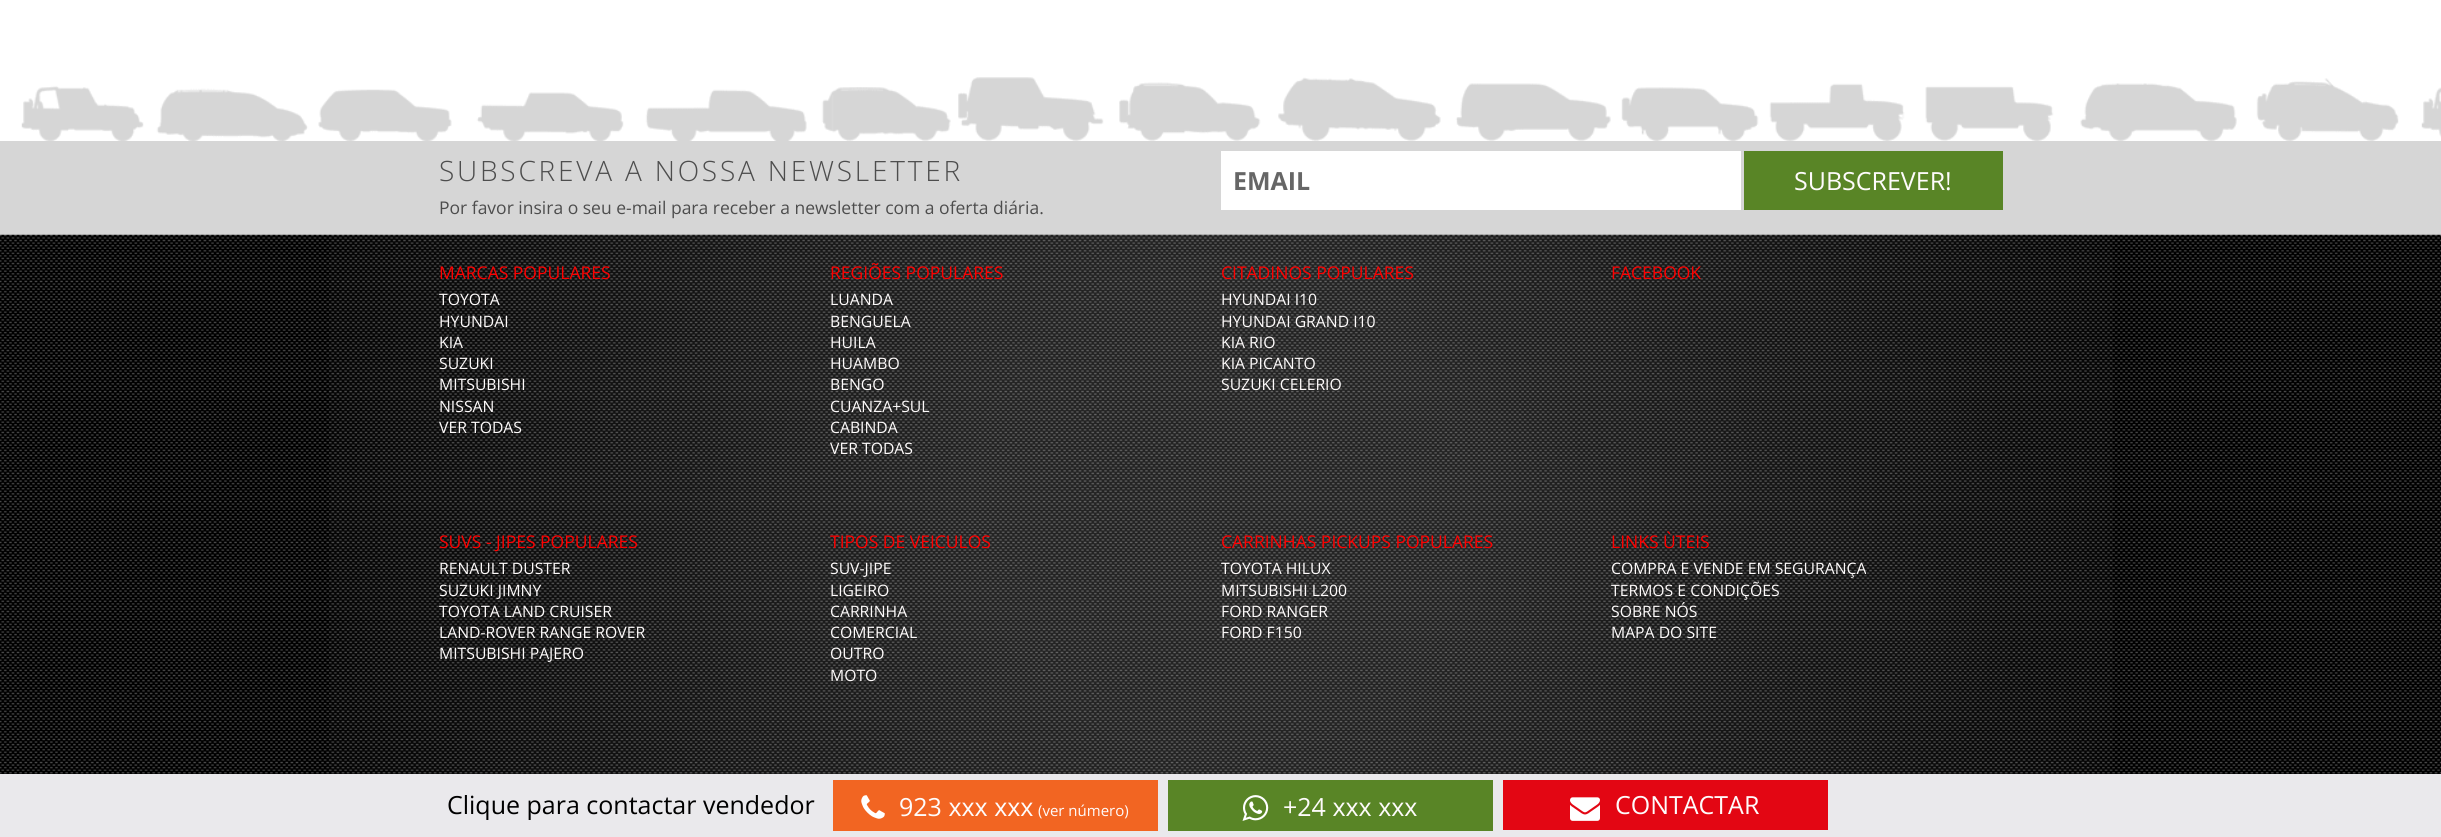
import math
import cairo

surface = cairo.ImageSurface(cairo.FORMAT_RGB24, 2441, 837)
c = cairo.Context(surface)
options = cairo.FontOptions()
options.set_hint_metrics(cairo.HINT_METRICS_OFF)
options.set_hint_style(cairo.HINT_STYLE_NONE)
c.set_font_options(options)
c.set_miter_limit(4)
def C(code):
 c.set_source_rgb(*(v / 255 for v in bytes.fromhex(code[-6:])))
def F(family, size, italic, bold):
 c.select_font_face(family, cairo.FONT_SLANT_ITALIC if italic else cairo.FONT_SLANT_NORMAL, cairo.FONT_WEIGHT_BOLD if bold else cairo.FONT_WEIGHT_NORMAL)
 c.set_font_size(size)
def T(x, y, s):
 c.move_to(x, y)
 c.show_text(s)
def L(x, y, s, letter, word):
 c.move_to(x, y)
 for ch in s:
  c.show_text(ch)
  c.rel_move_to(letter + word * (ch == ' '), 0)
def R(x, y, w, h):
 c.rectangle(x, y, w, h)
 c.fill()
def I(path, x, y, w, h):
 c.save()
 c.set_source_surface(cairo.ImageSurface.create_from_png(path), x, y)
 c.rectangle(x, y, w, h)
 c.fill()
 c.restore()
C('ffffff')
c.paint()
C('d6d6d6')
R(0,141,2441,94)
I('1.png',0,41,2441,100)
F('Open Sans Light',28,0,0)
C('4d4d4d')
L(439,181,'SUBSCREVA A NOSSA NEWSLETTER',2.8,0)
F('Open Sans',17.5,0,0)
T(439,214,'Por favor insira o seu e-mail para receber a newsletter com a oferta diária.')
C('ffffff')
R(1221,151,520,59)
F('Open Sans',25,0,1)
C('666666')
T(1233,190,'EMAIL')
C('598526')
R(1744,151,259,59)
F('Open Sans',25,0,0)
C('fefbfb')
T(1794,190,'SUBSCREVER!')
I('2.png',0,234,2441,540)
gradient = cairo.RadialGradient(1221,508,0,1221,508,1251)
gradient.add_color_stop_rgba(0,1,1,1,.14)
gradient.add_color_stop_rgba(.2,1,1,1,.14)
gradient.add_color_stop_rgba(.8,1,1,1,0)
c.set_source(gradient)
R(329,235,1784,539)
F('Open Sans',17.5,0,0)
C('ff0000')
T(439,279,'MARCAS POPULARES')
F('Open Sans',15.75,0,0)
C('fefbfb')
T(439,305,'TOYOTA')
T(439,327,'HYUNDAI')
T(439,348,'KIA')
T(439,369,'SUZUKI')
T(439,390,'MITSUBISHI')
T(439,412,'NISSAN')
T(439,433,'VER TODAS')
F('Open Sans',17.5,0,0)
C('ff0000')
T(830,279,'REGIÕES POPULARES')
F('Open Sans',15.75,0,0)
C('fefbfb')
T(830,305,'LUANDA')
T(830,327,'BENGUELA')
T(830,348,'HUILA')
T(830,369,'HUAMBO')
T(830,390,'BENGO')
T(830,412,'CUANZA+SUL')
T(830,433,'CABINDA')
T(830,454,'VER TODAS')
F('Open Sans',17.5,0,0)
C('ff0000')
T(1221,279,'CITADINOS POPULARES')
F('Open Sans',15.75,0,0)
C('fefbfb')
T(1221,305,'HYUNDAI I10')
T(1221,327,'HYUNDAI GRAND I10')
T(1221,348,'KIA RIO')
T(1221,369,'KIA PICANTO')
T(1221,390,'SUZUKI CELERIO')
F('Open Sans',17.5,0,0)
C('ff0000')
T(1611,279,'FACEBOOK')
T(439,548,'SUVS - JIPES POPULARES')
F('Open Sans',15.75,0,0)
C('fefbfb')
T(439,574,'RENAULT DUSTER')
T(439,596,'SUZUKI JIMNY')
T(439,617,'TOYOTA LAND CRUISER')
T(439,638,'LAND-ROVER RANGE ROVER')
T(439,659,'MITSUBISHI PAJERO')
F('Open Sans',17.5,0,0)
C('ff0000')
T(830,548,'TIPOS DE VEICULOS')
F('Open Sans',15.75,0,0)
C('fefbfb')
T(830,574,'SUV-JIPE')
T(830,596,'LIGEIRO')
T(830,617,'CARRINHA')
T(830,638,'COMERCIAL')
T(830,659,'OUTRO')
T(830,681,'MOTO')
F('Open Sans',17.5,0,0)
C('ff0000')
T(1221,548,'CARRINHAS PICKUPS POPULARES')
F('Open Sans',15.75,0,0)
C('fefbfb')
T(1221,574,'TOYOTA HILUX')
T(1221,596,'MITSUBISHI L200')
T(1221,617,'FORD RANGER')
T(1221,638,'FORD F150')
F('Open Sans',17.5,0,0)
C('ff0000')
T(1611,548,'LINKS ÙTEIS')
F('Open Sans',15.75,0,0)
C('fefbfb')
T(1611,574,'COMPRA E VENDE EM SEGURANÇA')
T(1611,596,'TERMOS E CONDIÇÕES')
T(1611,617,'SOBRE NÓS')
T(1611,638,'MAPA DO SITE')
C('eae9ec')
R(0,774,2441,63)
F('Open Sans',25,0,0)
C('000000')
T(447,814,'Clique para contactar vendedor')
C('f26522')
R(833,780,325,51)
I('3.png',861,795,24,24)
C('fefbfb')
T(899,816,'923 xxx xxx')
F('Open Sans',15,0,0)
T(1038,816,'(ver número)')
C('598526')
R(1168,780,325,51)
I('4.png',1242,795,27,26)
F('Open Sans',25,0,0)
C('fefbfb')
T(1283,816,'+24 xxx xxx')
C('e30613')
R(1503,780,325,50)
I('5.png',1570,797,30,24)
C('fefbfb')
T(1615,814,'CONTACTAR')
surface.write_to_png('o.png')
